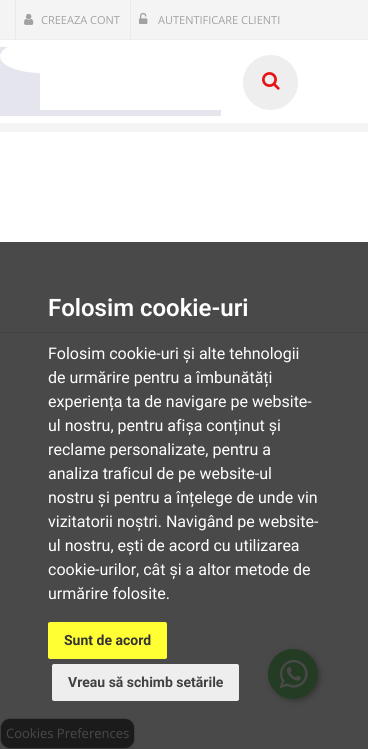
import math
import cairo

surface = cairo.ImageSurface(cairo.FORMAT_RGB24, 368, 749)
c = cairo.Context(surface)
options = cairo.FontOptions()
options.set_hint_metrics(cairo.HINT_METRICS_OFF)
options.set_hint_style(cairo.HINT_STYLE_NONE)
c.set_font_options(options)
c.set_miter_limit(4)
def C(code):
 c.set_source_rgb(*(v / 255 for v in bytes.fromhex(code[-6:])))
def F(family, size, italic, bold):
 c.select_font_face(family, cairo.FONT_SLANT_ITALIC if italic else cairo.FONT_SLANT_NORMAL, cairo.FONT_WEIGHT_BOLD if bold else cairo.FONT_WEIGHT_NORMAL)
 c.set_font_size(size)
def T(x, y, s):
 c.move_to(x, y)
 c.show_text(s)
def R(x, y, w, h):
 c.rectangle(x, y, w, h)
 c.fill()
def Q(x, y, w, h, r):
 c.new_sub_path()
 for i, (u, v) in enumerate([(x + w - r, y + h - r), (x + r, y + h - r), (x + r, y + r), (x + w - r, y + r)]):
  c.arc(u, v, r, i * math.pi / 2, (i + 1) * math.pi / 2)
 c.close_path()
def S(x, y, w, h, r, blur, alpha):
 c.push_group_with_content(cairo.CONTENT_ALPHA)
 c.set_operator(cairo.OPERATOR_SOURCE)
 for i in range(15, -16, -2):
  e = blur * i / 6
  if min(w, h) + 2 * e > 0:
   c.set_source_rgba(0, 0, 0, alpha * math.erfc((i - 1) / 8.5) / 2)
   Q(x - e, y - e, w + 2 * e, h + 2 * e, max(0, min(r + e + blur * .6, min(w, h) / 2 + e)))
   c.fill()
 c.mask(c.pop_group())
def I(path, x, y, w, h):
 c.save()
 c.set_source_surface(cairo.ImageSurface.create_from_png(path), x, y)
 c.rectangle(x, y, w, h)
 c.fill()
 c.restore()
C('ffffff')
c.paint()
C('494949')
R(0,242,368,507)
C('f4f4f4')
R(0,0,368,39)
C('eeeeee')
R(0,39,368,1)
C('e9e9e9')
R(15,0,1,39)
I('1.png',24,13,10,12)
F('Open Sans',11,0,0)
C('a2a2a2')
T(41,24,'CREEAZA CONT')
C('e9e9e9')
R(130,0,1,39)
I('2.png',139,12,9,12)
C('a2a2a2')
T(158,24,'AUTENTIFICARE CLIENTI')
C('f4f4f4')
R(0,123,368,9)
C('e4e5ed')
R(0,47,40,69)
C('ffffff')
c.new_path()
c.move_to(41.5,40)
c.curve_to(64.5,40,83,47.5,83,56.5)
c.curve_to(83,65.5,64.5,73,41.5,73)
c.curve_to(18.5,73,0,65.5,0,56.5)
c.curve_to(0,47.5,18.5,40,41.5,40)
c.close_path()
c.fill()
C('eeeeee')
c.arc(270.5,82.5,27.5,0,2 * math.pi)
c.fill()
I('3.png',262,72,18,18)
C('e4e5ed')
R(40,110,181,6)
C('434343')
R(0,332,368,1)
F('Roboto SemiBold',24,0,0)
C('ffffff')
T(48,316,'Folosim cookie-uri')
F('Roboto',16,0,0)
T(48,359,'Folosim cookie-uri și alte tehnologii')
T(48,383,'de urmărire pentru a îmbunătăți')
T(48,407,'experiența ta de navigare pe website-')
T(48,431,'ul nostru, pentru afișa conținut și')
T(48,455,'reclame personalizate, pentru a')
T(48,479,'analiza traficul de pe website-ul')
T(48,503,'nostru și pentru a înțelege de unde vin')
T(48,527,'vizitatorii noștri. Navigând pe website-')
T(48,551,'ul nostru, ești de acord cu utilizarea')
T(48,575,'cookie-urilor, cât și a altor metode de')
T(48,599,'urmărire folosite.')
C('ffff33')
Q(48,622,119,37,2)
c.fill()
F('Roboto',14,0,1)
C('333333')
T(64,645,'Sunt de acord')
C('eeeeee')
Q(52,664,187,37,2)
c.fill()
C('414141')
T(68,687,'Vreau să schimb setările')
C('161616')
S(270,651,50,50,25,3,.4)
C('253c24')
c.arc(293,674,25,0,2 * math.pi)
c.fill()
I('4.png',279,659,29,30)
C('1b1b1b')
Q(.5,718.5,134,30,9.5)
c.fill_preserve()
C('3e3e3e')
c.set_line_width(1)
c.stroke()
F('Open Sans',13,0,0)
C('494949')
T(6,738,'Cookies Preferences')
surface.write_to_png('o.png')
